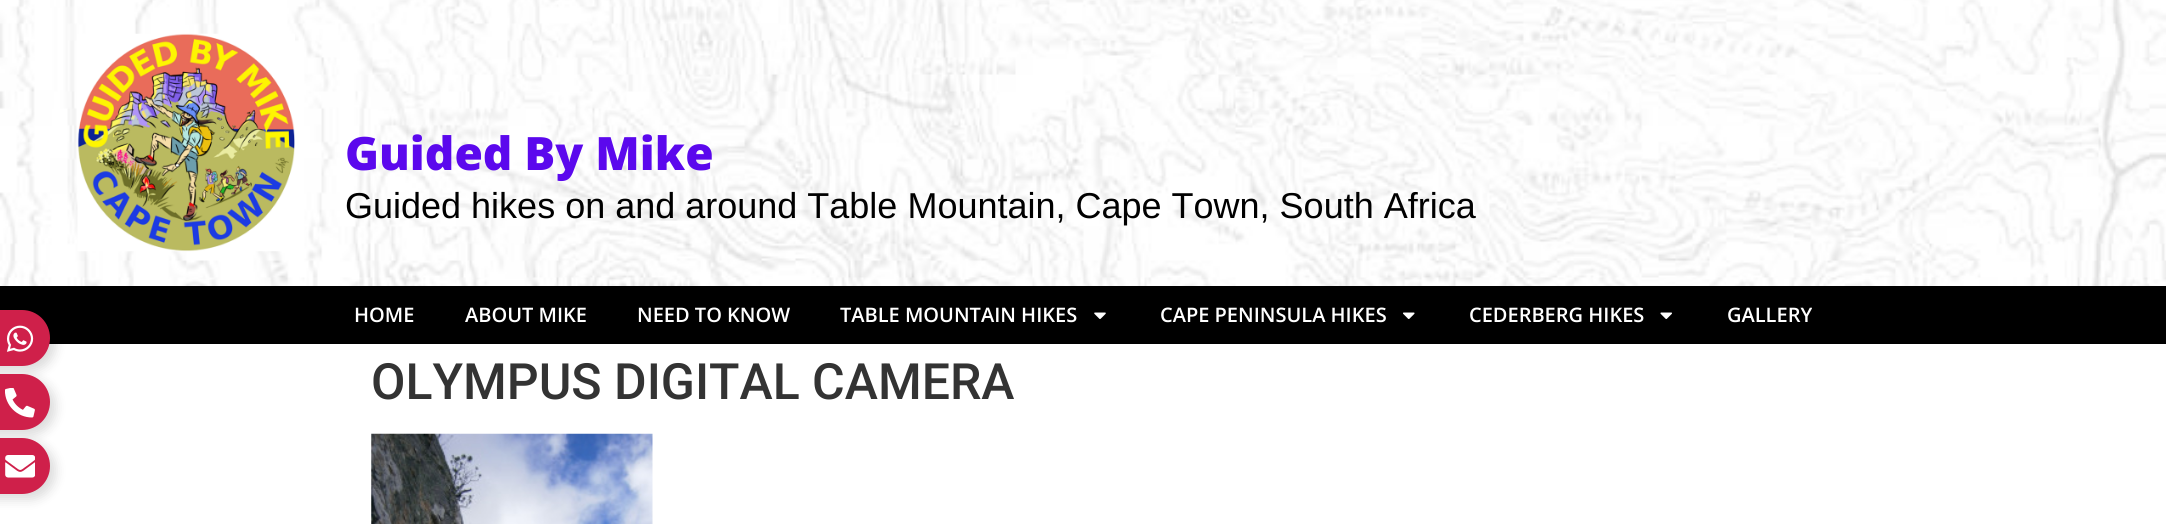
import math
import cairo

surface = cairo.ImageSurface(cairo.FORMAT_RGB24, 2166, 524)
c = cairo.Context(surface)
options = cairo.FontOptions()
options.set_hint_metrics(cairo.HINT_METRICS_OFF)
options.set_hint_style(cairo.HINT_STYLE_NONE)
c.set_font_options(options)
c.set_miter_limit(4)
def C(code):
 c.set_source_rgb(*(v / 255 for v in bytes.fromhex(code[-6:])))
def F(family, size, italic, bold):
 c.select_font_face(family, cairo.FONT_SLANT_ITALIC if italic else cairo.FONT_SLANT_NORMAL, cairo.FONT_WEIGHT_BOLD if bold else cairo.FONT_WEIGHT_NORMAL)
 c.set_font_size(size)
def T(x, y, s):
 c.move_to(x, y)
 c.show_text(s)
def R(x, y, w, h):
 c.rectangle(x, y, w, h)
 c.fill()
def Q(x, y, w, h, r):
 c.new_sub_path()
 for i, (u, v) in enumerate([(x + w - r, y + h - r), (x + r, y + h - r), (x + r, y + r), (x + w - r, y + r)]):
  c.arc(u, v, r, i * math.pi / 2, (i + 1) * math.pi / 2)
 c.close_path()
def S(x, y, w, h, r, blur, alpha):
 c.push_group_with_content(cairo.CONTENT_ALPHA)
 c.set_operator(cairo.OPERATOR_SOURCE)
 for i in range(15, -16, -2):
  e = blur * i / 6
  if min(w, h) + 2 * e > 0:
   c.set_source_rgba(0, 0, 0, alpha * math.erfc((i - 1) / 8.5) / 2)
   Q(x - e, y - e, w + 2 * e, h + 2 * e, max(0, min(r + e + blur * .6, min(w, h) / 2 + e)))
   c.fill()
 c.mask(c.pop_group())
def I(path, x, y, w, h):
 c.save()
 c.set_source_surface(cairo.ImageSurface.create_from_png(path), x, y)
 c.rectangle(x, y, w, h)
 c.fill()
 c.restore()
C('ffffff')
c.paint()
I('1.png',0,0,2166,286)
I('2.png',77,33,218,219)
F('Open Sans ExtraBold',46,0,0)
C('5b08ed')
T(345,170,'Guided By Mike')
F('Liberation Sans',36,0,0)
C('000000')
T(345,218,'Guided hikes on and around Table Mountain, Cape Town, South Africa')
R(0,286,2166,58)
F('Open Sans SemiBold',20,0,0)
C('ffffff')
T(354,322,'HOME')
T(465,322,'ABOUT MIKE')
T(637,322,'NEED TO KNOW')
T(840,322,'TABLE MOUNTAIN HIKES')
I('3.png',1094,312,12,7)
T(1160,322,'CAPE PENINSULA HIKES')
I('4.png',1403,312,12,7)
T(1469,322,'CEDERBERG HIKES')
I('5.png',1660,312,12,7)
T(1727,322,'GALLERY')
C('000000')
S(-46,315,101,56,28,6,.15)
C('cf204a')
c.new_path()
c.move_to(-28,310)
c.line_to(22,310)
c.curve_to(37.5,310,50,322.5,50,338)
c.curve_to(50,353.5,37.5,366,22,366)
c.line_to(-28,366)
c.close_path()
c.fill()
I('6.png',6,325,28,27)
C('000000')
S(-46,379,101,56,28,6,.15)
C('cf204a')
c.new_path()
c.move_to(-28,374)
c.line_to(22,374)
c.curve_to(37.5,374,50,386.5,50,402)
c.curve_to(50,417.5,37.5,430,22,430)
c.line_to(-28,430)
c.close_path()
c.fill()
I('7.png',5,388,30,30)
C('000000')
S(-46,443,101,56,28,6,.15)
C('cf204a')
c.new_path()
c.move_to(-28,438)
c.line_to(22,438)
c.curve_to(37.5,438,50,450.5,50,466)
c.curve_to(50,481.5,37.5,494,22,494)
c.line_to(-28,494)
c.close_path()
c.fill()
I('8.png',5,455,30,23)
F('Roboto Medium',50,0,0)
C('333333')
T(371,399,'OLYMPUS DIGITAL CAMERA')
I('9.png',371,433,282,91)
surface.write_to_png('o.png')
